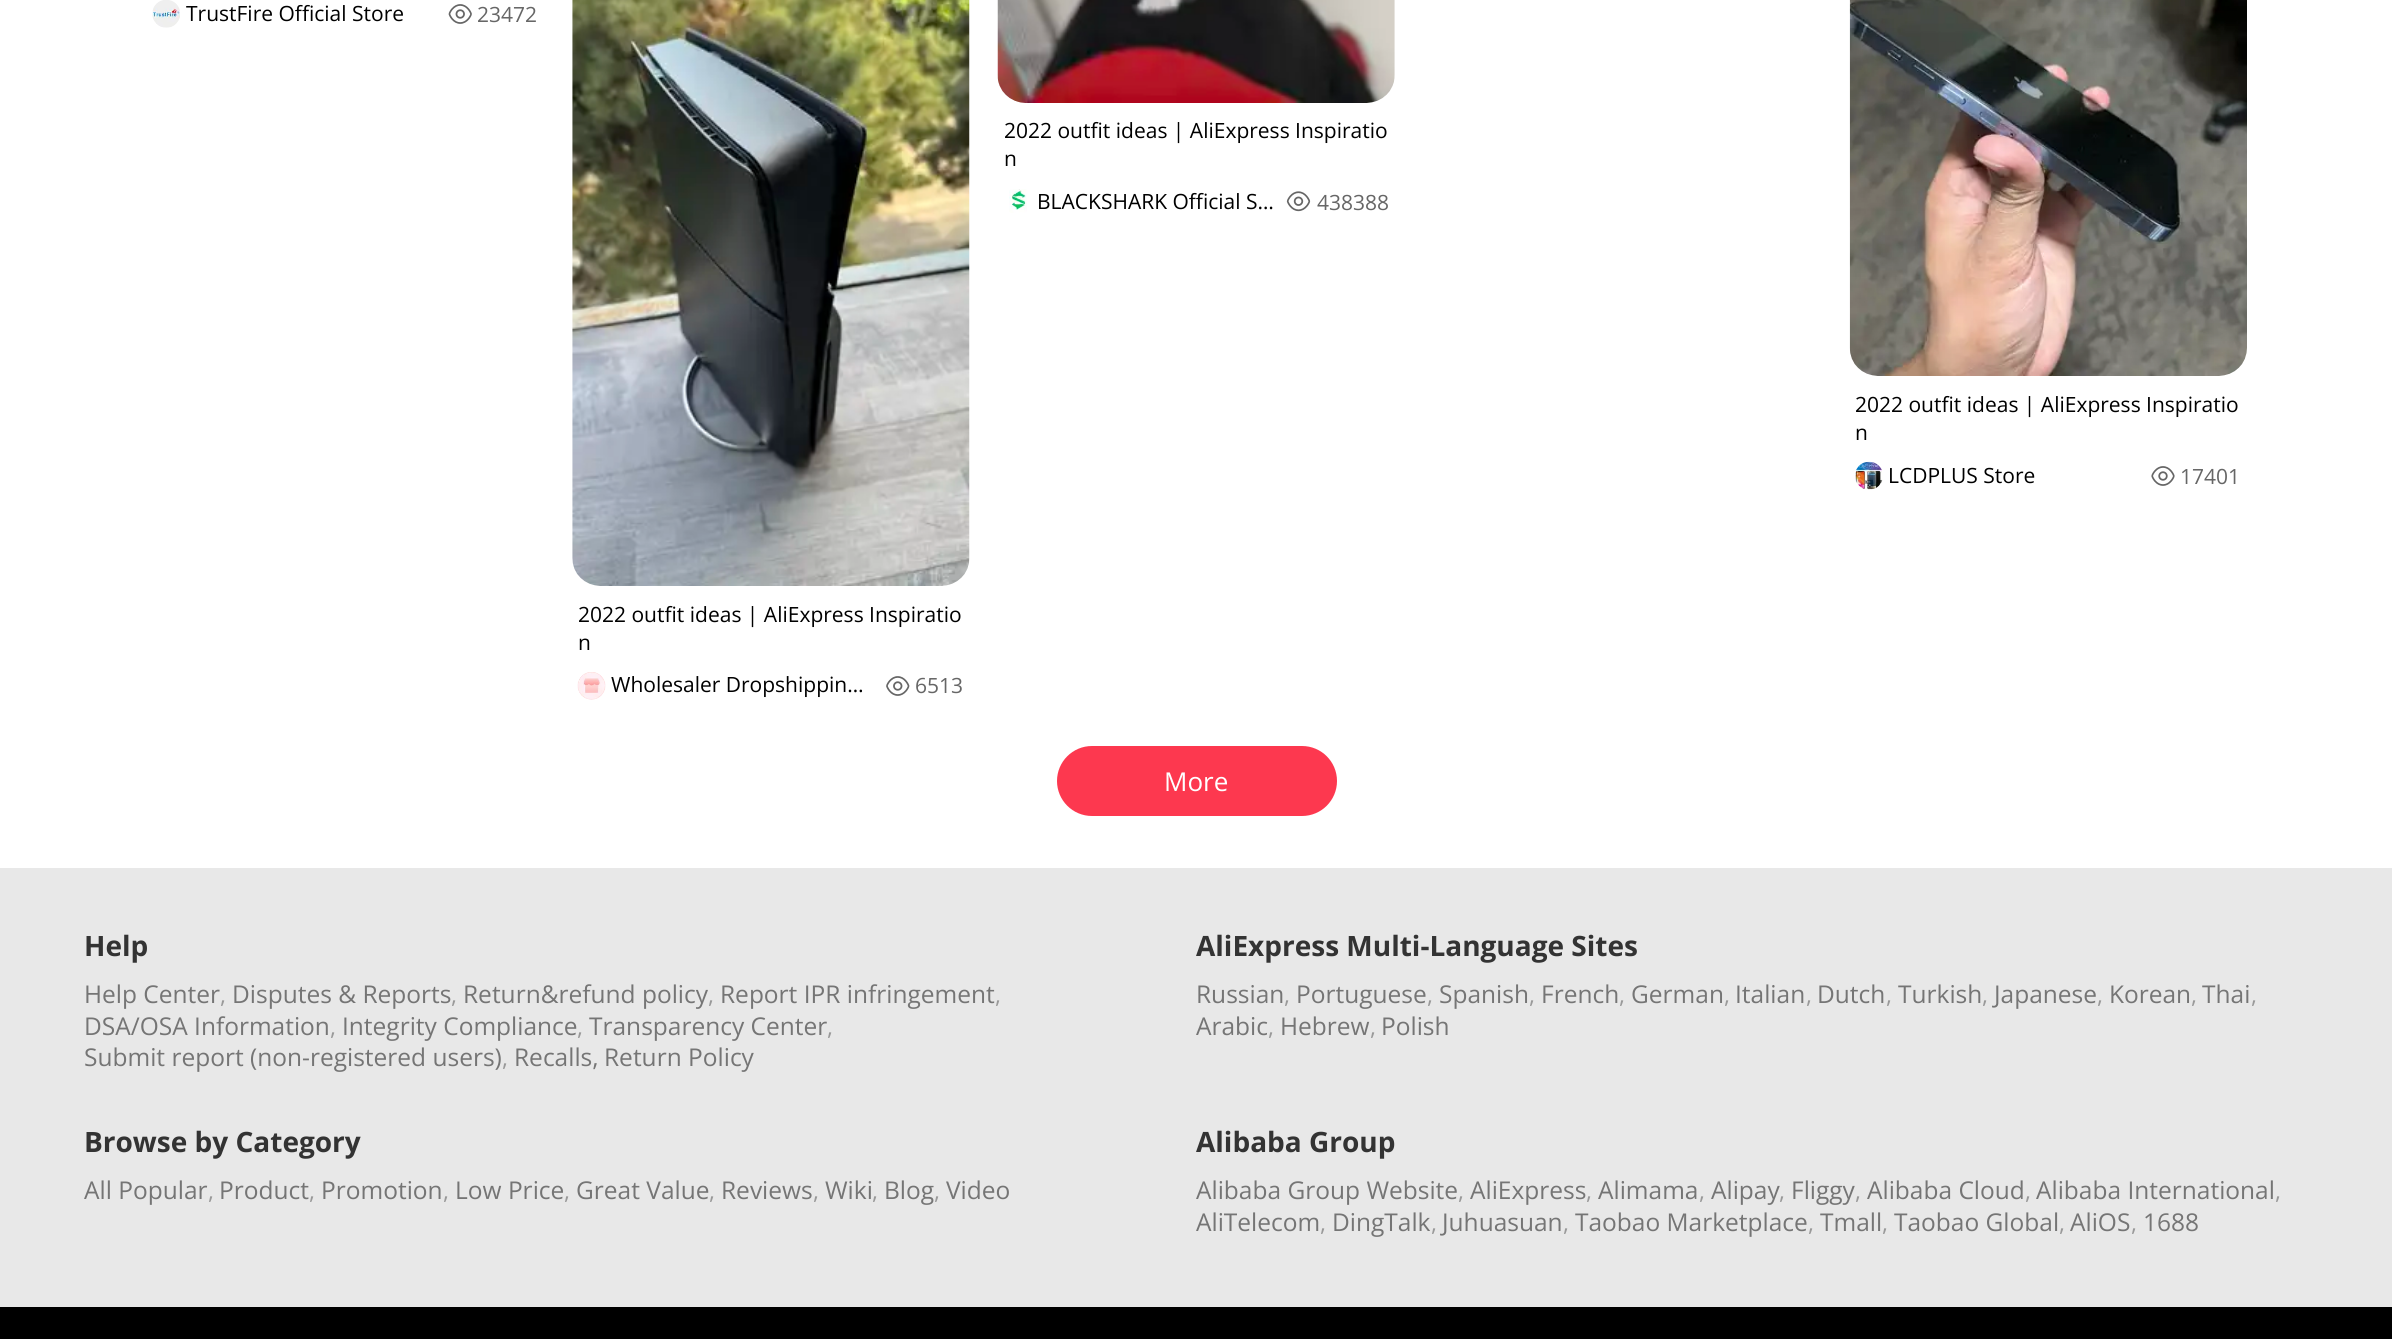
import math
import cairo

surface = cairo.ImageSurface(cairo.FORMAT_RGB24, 2392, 1339)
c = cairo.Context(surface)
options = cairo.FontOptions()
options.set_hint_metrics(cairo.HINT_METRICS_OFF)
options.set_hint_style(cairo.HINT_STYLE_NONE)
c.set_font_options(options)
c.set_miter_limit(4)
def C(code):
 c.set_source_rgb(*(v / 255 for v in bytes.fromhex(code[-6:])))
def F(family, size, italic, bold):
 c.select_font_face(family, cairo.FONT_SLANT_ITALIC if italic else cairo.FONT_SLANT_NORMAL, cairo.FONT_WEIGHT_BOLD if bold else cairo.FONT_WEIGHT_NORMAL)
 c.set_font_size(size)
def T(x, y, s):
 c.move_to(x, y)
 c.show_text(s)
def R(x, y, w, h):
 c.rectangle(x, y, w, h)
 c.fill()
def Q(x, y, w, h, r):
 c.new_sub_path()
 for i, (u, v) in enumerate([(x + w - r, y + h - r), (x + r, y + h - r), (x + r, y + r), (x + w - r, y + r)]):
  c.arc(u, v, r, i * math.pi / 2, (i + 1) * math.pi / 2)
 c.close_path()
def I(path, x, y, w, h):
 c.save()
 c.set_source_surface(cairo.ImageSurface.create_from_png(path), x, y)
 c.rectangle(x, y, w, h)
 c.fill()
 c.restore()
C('ffffff')
c.paint()
I('1.png',152,0,28,28)
F('Open Sans',21,0,0)
C('000000')
T(186,21,'TrustFire Official Store')
I('2.png',448,4,24,20)
C('666666')
T(477,22,'23472')
I('3.png',997,0,398,103)
C('000000')
T(1004,138,'2022 outfit ideas | AliExpress Inspiratio')
T(1004,166,'n')
I('4.png',1009,189,18,24)
T(1037,209,'BLACKSHARK Official S…')
I('5.png',1286,191,25,21)
C('666666')
T(1317,210,'438388')
I('6.png',1849,0,398,376)
C('000000')
T(1855,412,'2022 outfit ideas | AliExpress Inspiratio')
T(1855,440,'n')
I('7.png',1855,461,28,29)
T(1888,483,'LCDPLUS Store')
I('8.png',2151,466,24,20)
C('666666')
T(2180,484,'17401')
I('9.png',572,0,398,586)
C('000000')
T(578,622,'2022 outfit ideas | AliExpress Inspiratio')
T(578,650,'n')
I('10.png',577,672,29,28)
T(611,692,'Wholesaler Dropshippin…')
I('11.png',886,676,24,20)
C('666666')
T(915,693,'6513')
C('fd384f')
Q(1057,746,280,70,35)
c.fill()
F('Open Sans',26,0,0)
C('ffffff')
T(1164,791,'More')
C('e8e8e8')
R(0,868,2392,439)
F('Open Sans',28,0,1)
C('333333')
T(84,956,'Help')
F('Open Sans',24.5,0,0)
C('757575')
T(84,1003,'Help Center')
F('Open Sans',23,0,0)
C('999999')
T(220,1003,',')
F('Open Sans',24.5,0,0)
C('757575')
T(232,1003,'Disputes & Reports')
F('Open Sans',23,0,0)
C('999999')
T(451,1003,',')
F('Open Sans',24.5,0,0)
C('757575')
T(463,1003,'Return&refund policy')
F('Open Sans',23,0,0)
C('999999')
T(708,1003,',')
F('Open Sans',24.5,0,0)
C('757575')
T(720,1003,'Report IPR infringement')
F('Open Sans',23,0,0)
C('999999')
T(995,1003,',')
F('Open Sans',24.5,0,0)
C('757575')
T(84,1035,'DSA/OSA Information')
F('Open Sans',23,0,0)
C('999999')
T(330,1035,',')
F('Open Sans',24.5,0,0)
C('757575')
T(342,1035,'Integrity Compliance')
F('Open Sans',23,0,0)
C('999999')
T(577,1035,',')
F('Open Sans',24.5,0,0)
C('757575')
T(589,1035,'Transparency Center')
F('Open Sans',23,0,0)
C('999999')
T(827,1035,',')
F('Open Sans',24.5,0,0)
C('757575')
T(84,1066,'Submit report (non-registered users)')
F('Open Sans',23,0,0)
C('999999')
T(502,1066,',')
F('Open Sans',24.5,0,0)
C('757575')
T(514,1066,'Recalls,')
T(604,1066,'Return Policy')
F('Open Sans',28,0,1)
C('333333')
T(1196,956,'AliExpress Multi-Language Sites')
F('Open Sans',24.5,0,0)
C('757575')
T(1196,1003,'Russian')
F('Open Sans',23,0,0)
C('999999')
T(1284,1003,',')
F('Open Sans',24.5,0,0)
C('757575')
T(1296,1003,'Portuguese')
F('Open Sans',23,0,0)
C('999999')
T(1427,1003,',')
F('Open Sans',24.5,0,0)
C('757575')
T(1439,1003,'Spanish')
F('Open Sans',23,0,0)
C('999999')
T(1529,1003,',')
F('Open Sans',24.5,0,0)
C('757575')
T(1541,1003,'French')
F('Open Sans',23,0,0)
C('999999')
T(1619,1003,',')
F('Open Sans',24.5,0,0)
C('757575')
T(1631,1003,'German')
F('Open Sans',23,0,0)
C('999999')
T(1724,1003,',')
F('Open Sans',24.5,0,0)
C('757575')
T(1735,1003,'Italian')
F('Open Sans',23,0,0)
C('999999')
T(1806,1003,',')
F('Open Sans',24.5,0,0)
C('757575')
T(1817,1003,'Dutch')
F('Open Sans',23,0,0)
C('999999')
T(1886,1003,',')
F('Open Sans',24.5,0,0)
C('757575')
T(1898,1003,'Turkish')
F('Open Sans',23,0,0)
C('999999')
T(1982,1003,',')
F('Open Sans',24.5,0,0)
C('757575')
T(1994,1003,'Japanese')
F('Open Sans',23,0,0)
C('999999')
T(2097,1003,',')
F('Open Sans',24.5,0,0)
C('757575')
T(2109,1003,'Korean')
F('Open Sans',23,0,0)
C('999999')
T(2191,1003,',')
F('Open Sans',24.5,0,0)
C('757575')
T(2202,1003,'Thai')
F('Open Sans',23,0,0)
C('999999')
T(2251,1003,',')
F('Open Sans',24.5,0,0)
C('757575')
T(1196,1035,'Arabic')
F('Open Sans',23,0,0)
C('999999')
T(1268,1035,',')
F('Open Sans',24.5,0,0)
C('757575')
T(1280,1035,'Hebrew')
F('Open Sans',23,0,0)
C('999999')
T(1370,1035,',')
F('Open Sans',24.5,0,0)
C('757575')
T(1381,1035,'Polish')
F('Open Sans',28,0,1)
C('333333')
T(84,1152,'Browse by Category')
F('Open Sans',24.5,0,0)
C('757575')
T(84,1199,'All Popular')
F('Open Sans',23,0,0)
C('999999')
T(208,1199,',')
F('Open Sans',24.5,0,0)
C('757575')
T(219,1199,'Product')
F('Open Sans',23,0,0)
C('999999')
T(309,1199,',')
F('Open Sans',24.5,0,0)
C('757575')
T(321,1199,'Promotion')
F('Open Sans',23,0,0)
C('999999')
T(443,1199,',')
F('Open Sans',24.5,0,0)
C('757575')
T(455,1199,'Low Price')
F('Open Sans',23,0,0)
C('999999')
T(564,1199,',')
F('Open Sans',24.5,0,0)
C('757575')
T(576,1199,'Great Value')
F('Open Sans',23,0,0)
C('999999')
T(709,1199,',')
F('Open Sans',24.5,0,0)
C('757575')
T(721,1199,'Reviews')
F('Open Sans',23,0,0)
C('999999')
T(813,1199,',')
F('Open Sans',24.5,0,0)
C('757575')
T(825,1199,'Wiki')
F('Open Sans',23,0,0)
C('999999')
T(872,1199,',')
F('Open Sans',24.5,0,0)
C('757575')
T(884,1199,'Blog')
F('Open Sans',23,0,0)
C('999999')
T(934,1199,',')
F('Open Sans',24.5,0,0)
C('757575')
T(946,1199,'Video')
F('Open Sans',28,0,1)
C('333333')
T(1196,1152,'Alibaba Group')
F('Open Sans',24.5,0,0)
C('757575')
T(1196,1199,'Alibaba Group Website')
F('Open Sans',23,0,0)
C('999999')
T(1458,1199,',')
F('Open Sans',24.5,0,0)
C('757575')
T(1470,1199,'AliExpress')
F('Open Sans',23,0,0)
C('999999')
T(1586,1199,',')
F('Open Sans',24.5,0,0)
C('757575')
T(1598,1199,'Alimama')
F('Open Sans',23,0,0)
C('999999')
T(1699,1199,',')
F('Open Sans',24.5,0,0)
C('757575')
T(1711,1199,'Alipay')
F('Open Sans',23,0,0)
C('999999')
T(1779,1199,',')
F('Open Sans',24.5,0,0)
C('757575')
T(1791,1199,'Fliggy')
F('Open Sans',23,0,0)
C('999999')
T(1855,1199,',')
F('Open Sans',24.5,0,0)
C('757575')
T(1867,1199,'Alibaba Cloud')
F('Open Sans',23,0,0)
C('999999')
T(2025,1199,',')
F('Open Sans',24.5,0,0)
C('757575')
T(2036,1199,'Alibaba International')
F('Open Sans',23,0,0)
C('999999')
T(2275,1199,',')
F('Open Sans',24.5,0,0)
C('757575')
T(1196,1231,'AliTelecom')
F('Open Sans',23,0,0)
C('999999')
T(1320,1231,',')
F('Open Sans',24.5,0,0)
C('757575')
T(1332,1231,'DingTalk')
F('Open Sans',23,0,0)
C('999999')
T(1431,1231,',')
F('Open Sans',24.5,0,0)
C('757575')
T(1442,1231,'Juhuasuan')
F('Open Sans',23,0,0)
C('999999')
T(1563,1231,',')
F('Open Sans',24.5,0,0)
C('757575')
T(1575,1231,'Taobao Marketplace')
F('Open Sans',23,0,0)
C('999999')
T(1808,1231,',')
F('Open Sans',24.5,0,0)
C('757575')
T(1820,1231,'Tmall')
F('Open Sans',23,0,0)
C('999999')
T(1882,1231,',')
F('Open Sans',24.5,0,0)
C('757575')
T(1894,1231,'Taobao Global')
F('Open Sans',23,0,0)
C('999999')
T(2059,1231,',')
F('Open Sans',24.5,0,0)
C('757575')
T(2070,1231,'AliOS')
F('Open Sans',23,0,0)
C('999999')
T(2131,1231,',')
F('Open Sans',24.5,0,0)
C('757575')
T(2143,1231,'1688')
C('000000')
R(0,1307,2392,32)
surface.write_to_png('o.png')
